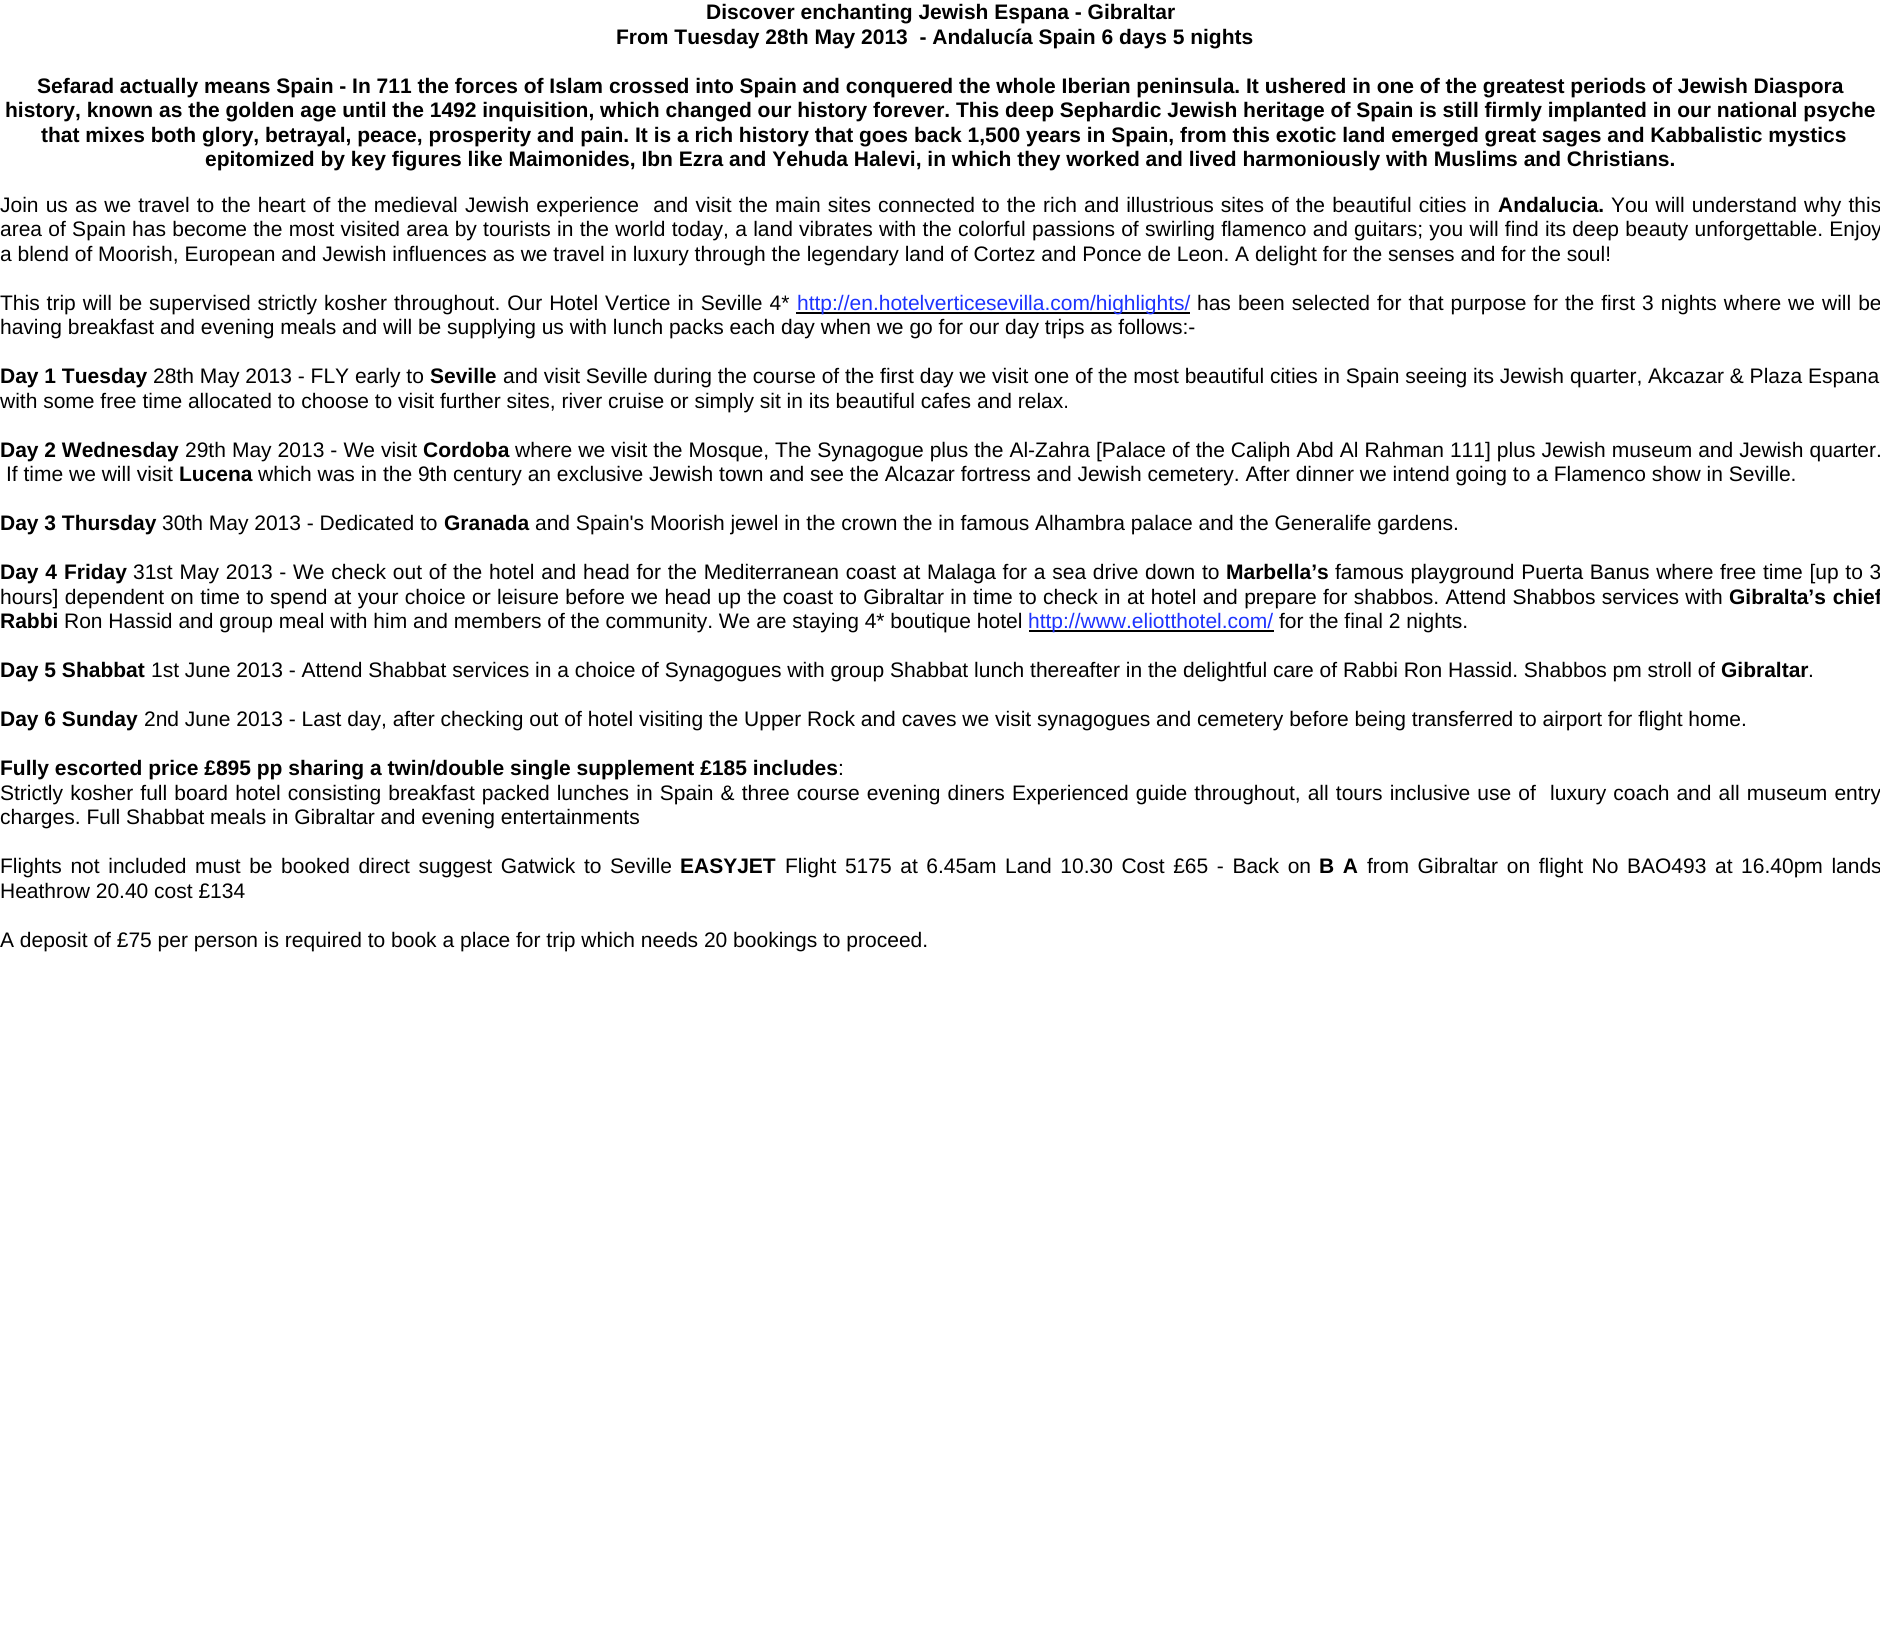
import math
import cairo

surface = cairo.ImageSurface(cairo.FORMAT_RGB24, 1880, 1633)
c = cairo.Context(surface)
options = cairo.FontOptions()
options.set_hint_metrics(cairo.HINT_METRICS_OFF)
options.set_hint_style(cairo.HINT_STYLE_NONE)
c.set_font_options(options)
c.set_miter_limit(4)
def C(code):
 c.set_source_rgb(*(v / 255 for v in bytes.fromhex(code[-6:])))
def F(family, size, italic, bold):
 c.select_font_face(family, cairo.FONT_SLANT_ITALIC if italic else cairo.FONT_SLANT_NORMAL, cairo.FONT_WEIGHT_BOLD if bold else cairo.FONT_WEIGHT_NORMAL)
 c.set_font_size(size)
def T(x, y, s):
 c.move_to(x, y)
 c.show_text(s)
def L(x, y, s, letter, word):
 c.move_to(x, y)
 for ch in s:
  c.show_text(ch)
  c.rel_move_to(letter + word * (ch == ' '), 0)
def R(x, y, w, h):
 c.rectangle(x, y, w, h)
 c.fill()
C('ffffff')
c.paint()
F('Liberation Sans',21,0,1)
C('000000')
T(706,19,'Discover enchanting Jewish Espana - Gibraltar')
T(616,44,'From Tuesday 28th May 2013  - Andalucía Spain 6 days 5 nights')
T(37,93,'Sefarad actually means Spain - In 711 the forces of Islam crossed into Spain and conquered the whole Iberian peninsula. It ushered in one of the greatest periods of Jewish Diaspora')
T(5,117,'history, known as the golden age until the 1492 inquisition, which changed our history forever. This deep Sephardic Jewish heritage of Spain is still firmly implanted in our national psyche')
T(41,142,'that mixes both glory, betrayal, peace, prosperity and pain. It is a rich history that goes back 1,500 years in Spain, from this exotic land emerged great sages and Kabbalistic mystics')
T(205,166,'epitomized by key figures like Maimonides, Ibn Ezra and Yehuda Halevi, in which they worked and lived harmoniously with Muslims and Christians.')
F('Liberation Sans',21,0,0)
L(0,212,'Join us as we travel to the heart of the medieval Jewish experience  and visit the main sites connected to the rich and illustrious sites of the beautiful cities in',0,1.3)
F('Liberation Sans',21,0,1)
T(1498,212,'Andalucia.')
F('Liberation Sans',21,0,0)
L(1611,212,'You will understand why this',0,1.3)
L(0,236,'area of Spain has become the most visited area by tourists in the world today, a land vibrates with the colorful passions of swirling flamenco and guitars; you will find its deep beauty unforgettable. Enjoy',0,.45)
T(0,261,'a blend of Moorish, European and Jewish influences as we travel in luxury through the legendary land of Cortez and Ponce de Leon. A delight for the senses and for the soul!')
L(0,310,'This trip will be supervised strictly kosher throughout. Our Hotel Vertice in Seville 4*',0,1.1)
R(796,312,394,2)
C('1d33fe')
T(797,310,'http://en.hotelverticesevilla.com/highlights/')
C('000000')
L(1197,310,'has been selected for that purpose for the first 3 nights where we will be',0,1.2)
T(0,334,'having breakfast and evening meals and will be supplying us with lunch packs each day when we go for our day trips as follows:-')
F('Liberation Sans',21,0,1)
T(0,383,'Day 1 Tuesday')
F('Liberation Sans',21,0,0)
T(153,383,'28th May 2013 - FLY early to')
F('Liberation Sans',21,0,1)
T(430,383,'Seville')
F('Liberation Sans',21,0,0)
T(503,383,'and visit Seville during the course of the first day we visit one of the most beautiful cities in Spain seeing its Jewish quarter, Akcazar & Plaza Espana')
T(0,408,'with some free time allocated to choose to visit further sites, river cruise or simply sit in its beautiful cafes and relax.')
F('Liberation Sans',21,0,1)
T(0,457,'Day 2 Wednesday')
F('Liberation Sans',21,0,0)
L(185,457,'29th May 2013 - We visit',0,.2)
F('Liberation Sans',21,0,1)
T(423,457,'Cordoba')
F('Liberation Sans',21,0,0)
L(515,457,'where we visit the Mosque, The Synagogue plus the Al-Zahra [Palace of the Caliph Abd Al Rahman 111] plus Jewish museum and Jewish quarter.',0,.2)
T(6,481,'If time we will visit')
F('Liberation Sans',21,0,1)
T(179,481,'Lucena')
F('Liberation Sans',21,0,0)
T(258,481,'which was in the 9th century an exclusive Jewish town and see the Alcazar fortress and Jewish cemetery. After dinner we intend going to a Flamenco show in Seville.')
F('Liberation Sans',21,0,1)
T(0,530,'Day 3 Thursday')
F('Liberation Sans',21,0,0)
T(162,530,'30th May 2013 - Dedicated to')
F('Liberation Sans',21,0,1)
T(444,530,'Granada')
F('Liberation Sans',21,0,0)
T(535,530,'and Spain\'s Moorish jewel in the crown the in famous Alhambra palace and the Generalife gardens.')
F('Liberation Sans',21,0,1)
L(0,579,'Day 4 Friday',0,1)
F('Liberation Sans',21,0,0)
L(133,579,'31st May 2013 - We check out of the hotel and head for the Mediterranean coast at Malaga for a sea drive down to',0,.9)
F('Liberation Sans',21,0,1)
T(1226,579,'Marbella’s')
F('Liberation Sans',21,0,0)
L(1335,579,'famous playground Puerta Banus where free time [up to 3',0,.9)
L(0,604,'hours] dependent on time to spend at your choice or leisure before we head up the coast to Gibraltar in time to check in at hotel and prepare for shabbos. Attend Shabbos services with',0,.55)
F('Liberation Sans',21,0,1)
L(1729,604,'Gibralta’s chief',0,1)
T(0,628,'Rabbi')
F('Liberation Sans',21,0,0)
T(64,628,'Ron Hassid and group meal with him and members of the community. We are staying 4* boutique hotel')
R(1029,630,245,2)
C('1d33fe')
T(1028,628,'http://www.eliotthotel.com/')
C('000000')
T(1279,628,'for the final 2 nights.')
F('Liberation Sans',21,0,1)
T(0,677,'Day 5 Shabbat')
F('Liberation Sans',21,0,0)
T(151,677,'1st June 2013 - Attend Shabbat services in a choice of Synagogues with group Shabbat lunch thereafter in the delightful care of Rabbi Ron Hassid. Shabbos pm stroll of')
F('Liberation Sans',21,0,1)
T(1721,677,'Gibraltar')
F('Liberation Sans',21,0,0)
T(1808,677,'.')
F('Liberation Sans',21,0,1)
T(0,726,'Day 6 Sunday')
F('Liberation Sans',21,0,0)
T(144,726,'2nd June 2013 - Last day, after checking out of hotel visiting the Upper Rock and caves we visit synagogues and cemetery before being transferred to airport for flight home.')
F('Liberation Sans',21,0,1)
T(0,775,'Fully escorted price £895 pp sharing a twin/double single supplement £185 includes')
F('Liberation Sans',21,0,0)
T(838,775,':')
L(0,800,'Strictly kosher full board hotel consisting breakfast packed lunches in Spain & three course evening diners Experienced guide throughout, all tours inclusive use of  luxury coach and all museum entry',0,1.3)
T(0,824,'charges. Full Shabbat meals in Gibraltar and evening entertainments')
L(0,873,'Flights not included must be booked direct suggest Gatwick to Seville',0,2.75)
F('Liberation Sans',21,0,1)
T(680,873,'EASYJET')
F('Liberation Sans',21,0,0)
L(785,873,'Flight 5175 at 6.45am Land 10.30 Cost £65 - Back on',0,2.75)
F('Liberation Sans',21,0,1)
L(1319,873,'B A',0,2.75)
F('Liberation Sans',21,0,0)
L(1367,873,'from Gibraltar on flight No BAO493 at 16.40pm lands',0,2.75)
T(0,898,'Heathrow 20.40 cost £134')
T(0,947,'A deposit of £75 per person is required to book a place for trip which needs 20 bookings to proceed.')
surface.write_to_png('o.png')
